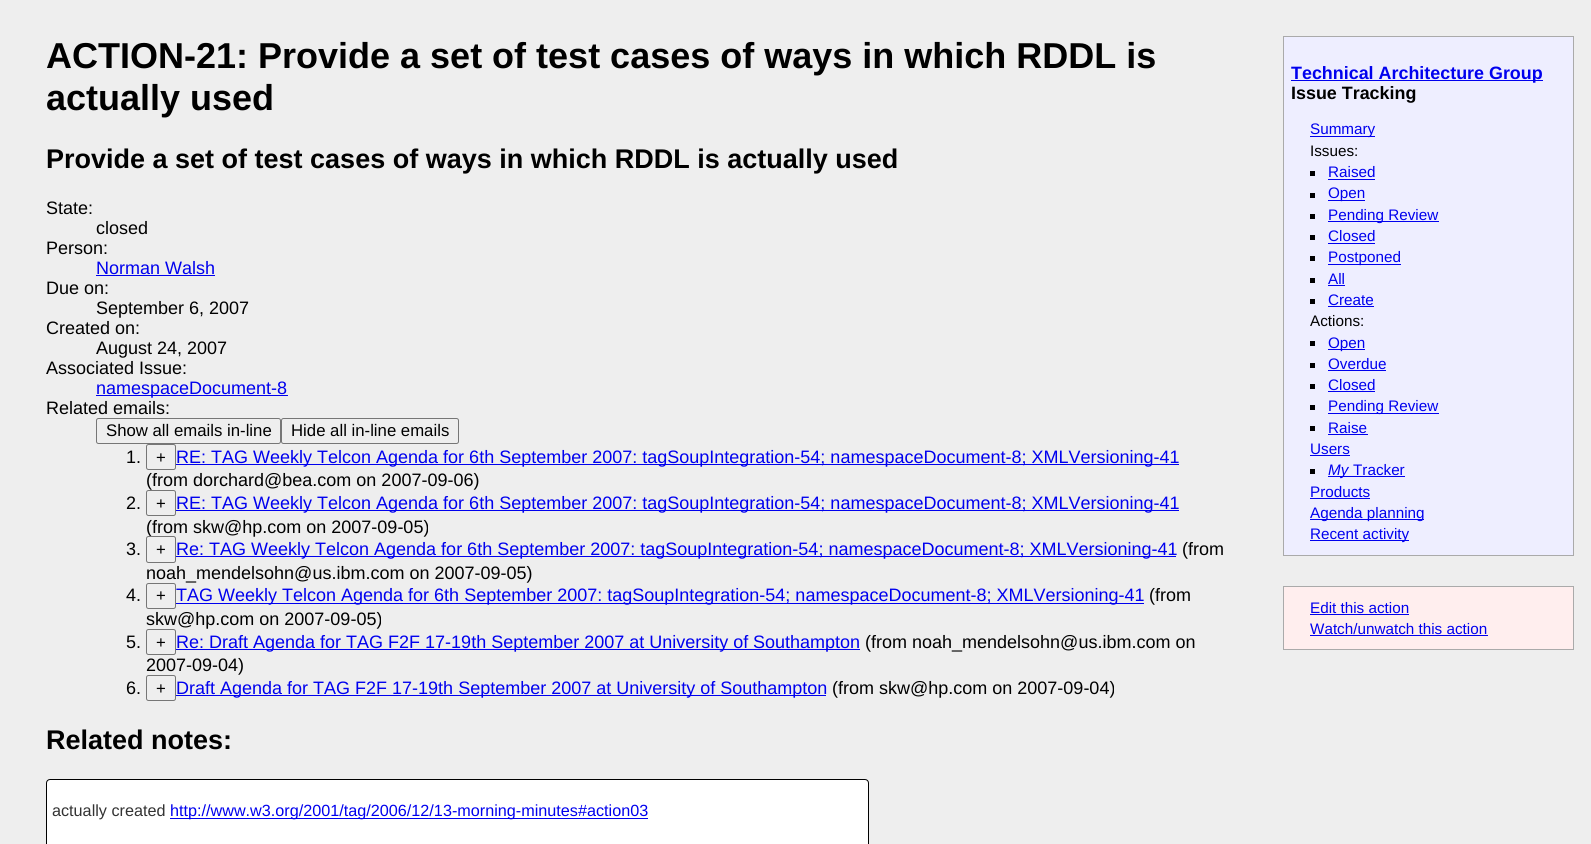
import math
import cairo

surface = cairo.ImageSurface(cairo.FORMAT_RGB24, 1591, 844)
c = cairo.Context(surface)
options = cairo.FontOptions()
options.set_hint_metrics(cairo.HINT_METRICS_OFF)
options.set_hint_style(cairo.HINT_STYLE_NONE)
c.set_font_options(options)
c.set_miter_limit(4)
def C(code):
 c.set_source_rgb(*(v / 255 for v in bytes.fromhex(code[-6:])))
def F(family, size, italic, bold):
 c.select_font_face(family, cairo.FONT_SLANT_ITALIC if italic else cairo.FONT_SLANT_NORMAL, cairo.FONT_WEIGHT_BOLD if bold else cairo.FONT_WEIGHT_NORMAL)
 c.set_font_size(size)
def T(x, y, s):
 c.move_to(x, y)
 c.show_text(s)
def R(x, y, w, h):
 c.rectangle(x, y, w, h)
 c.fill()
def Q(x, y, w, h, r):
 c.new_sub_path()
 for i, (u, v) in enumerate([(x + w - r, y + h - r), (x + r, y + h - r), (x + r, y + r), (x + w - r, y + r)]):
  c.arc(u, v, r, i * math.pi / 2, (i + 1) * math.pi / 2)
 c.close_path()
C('eeeeee')
c.paint()
F('Liberation Sans',36,0,1)
C('000000')
T(46,68,'ACTION-21: Provide a set of test cases of ways in which RDDL is')
T(46,110,'actually used')
F('Liberation Sans',27,0,1)
T(46,168,'Provide a set of test cases of ways in which RDDL is actually used')
F('Liberation Sans',18,0,0)
T(46,214,'State:')
T(96,234,'closed')
T(46,254,'Person:')
C('0000ee')
T(96,274,'Norman Walsh')
R(96,275,119,1)
C('000000')
T(46,294,'Due on:')
T(96,314,'September 6, 2007')
T(46,334,'Created on:')
T(96,354,'August 24, 2007')
T(46,374,'Associated Issue:')
C('0000ee')
R(96,395,192,1)
T(96,394,'namespaceDocument-8')
C('000000')
T(46,414,'Related emails:')
Q(96.5,418.5,184,25,2)
C('767676')
c.set_line_width(1)
c.stroke()
F('Liberation Sans',16.75,0,0)
C('000000')
T(106,436,'Show all emails in-line')
Q(281.5,418.5,177,25,2)
C('767676')
c.stroke()
C('000000')
T(291,436,'Hide all in-line emails')
F('Liberation Sans',18,0,0)
T(126,463,'1.')
Q(146.5,444.5,29,25,2)
C('767676')
c.stroke()
F('Liberation Sans',16.75,0,0)
C('000000')
T(156,463,'+')
C('0000ee')
R(176,464,1003,1)
F('Liberation Sans',18,0,0)
T(176,463,'RE: TAG Weekly Telcon Agenda for 6th September 2007: tagSoupIntegration-54; namespaceDocument-8; XMLVersioning-41')
C('000000')
T(146,486,'(from dorchard@bea.com on 2007-09-06)')
T(126,509,'2.')
Q(146.5,490.5,29,25,2)
C('767676')
c.stroke()
F('Liberation Sans',16.75,0,0)
C('000000')
T(156,509,'+')
C('0000ee')
R(176,510,1003,1)
F('Liberation Sans',18,0,0)
T(176,509,'RE: TAG Weekly Telcon Agenda for 6th September 2007: tagSoupIntegration-54; namespaceDocument-8; XMLVersioning-41')
C('000000')
T(146,533,'(from skw@hp.com on 2007-09-05)')
T(126,555,'3.')
C('efefef')
Q(146.5,536.5,29,26,2)
c.fill_preserve()
C('767676')
c.stroke()
F('Liberation Sans',16.75,0,0)
C('000000')
T(156,555,'+')
C('0000ee')
R(176,556,1000,1)
F('Liberation Sans',18,0,0)
T(176,555,'Re: TAG Weekly Telcon Agenda for 6th September 2007: tagSoupIntegration-54; namespaceDocument-8; XMLVersioning-41')
C('000000')
T(1182,555,'(from')
T(146,579,'noah_mendelsohn@us.ibm.com on 2007-09-05)')
T(126,601,'4.')
Q(146.5,583.5,29,25,2)
C('767676')
c.stroke()
F('Liberation Sans',16.75,0,0)
C('000000')
T(156,601,'+')
C('0000ee')
R(176,603,968,1)
F('Liberation Sans',18,0,0)
T(176,601,'TAG Weekly Telcon Agenda for 6th September 2007: tagSoupIntegration-54; namespaceDocument-8; XMLVersioning-41')
C('000000')
T(1149,601,'(from')
T(146,625,'skw@hp.com on 2007-09-05)')
T(126,648,'5.')
Q(146.5,629.5,29,25,2)
C('767676')
c.stroke()
F('Liberation Sans',16.75,0,0)
C('000000')
T(156,648,'+')
C('0000ee')
R(176,649,684,1)
F('Liberation Sans',18,0,0)
T(176,648,'Re: Draft Agenda for TAG F2F 17-19th September 2007 at University of')
T(753,648,'Southampton')
C('000000')
T(865,648,'(from noah_mendelsohn@us.ibm.com on')
T(146,671,'2007-09-04)')
T(126,694,'6.')
Q(146.5,675.5,29,25,2)
C('767676')
c.stroke()
F('Liberation Sans',16.75,0,0)
C('000000')
T(156,694,'+')
C('0000ee')
R(176,695,650,1)
F('Liberation Sans',18,0,0)
T(176,694,'Draft Agenda for TAG F2F 17-19th September 2007 at University of Southampton')
C('000000')
T(832,694,'(from skw@hp.com on 2007-09-04)')
F('Liberation Sans',27,0,1)
T(46,749,'Related notes:')
C('ffffff')
Q(46.5,779.5,822,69,3.5)
c.fill_preserve()
C('000000')
c.stroke()
F('Liberation Sans',16.2,0,0)
C('333333')
T(52,816,'actually created')
C('0000ee')
R(170,818,478,1)
T(170,816,'http://www.w3.org/2001/tag/2006/12/13-morning-minutes#action03')
C('eeeeff')
c.rectangle(1283.5,36.5,290,519)
c.fill_preserve()
C('aaaaaa')
c.stroke()
C('0000ee')
R(1291,80,252,1)
F('Liberation Sans',17.9,0,1)
T(1291,79,'Technical Architecture Group')
C('000000')
T(1291,99,'Issue Tracking')
C('0000ee')
R(1310,136,65,1)
F('Liberation Sans',15.25,0,0)
T(1310,134,'Summary')
C('000000')
T(1310,156,'Issues:')
R(1310,171,5,5)
C('0000ee')
T(1328,177,'Raised')
R(1328,179,47,1)
C('000000')
R(1310,193,5,5)
C('0000ee')
R(1328,200,37,1)
T(1328,198,'Open')
C('000000')
R(1310,214,5,5)
C('0000ee')
R(1328,221,111,1)
T(1328,220,'Pending Review')
C('000000')
R(1310,235,5,5)
C('0000ee')
T(1328,241,'Closed')
R(1328,243,47,1)
C('000000')
R(1310,256,5,5)
C('0000ee')
R(1328,264,73,1)
T(1328,262,'Postponed')
C('000000')
R(1310,278,5,5)
C('0000ee')
T(1328,284,'All')
R(1328,285,17,1)
C('000000')
R(1310,299,5,5)
C('0000ee')
T(1328,305,'Create')
R(1328,306,46,1)
C('000000')
T(1310,326,'Actions:')
R(1310,341,5,5)
C('0000ee')
R(1328,349,37,1)
T(1328,348,'Open')
C('000000')
R(1310,363,5,5)
C('0000ee')
T(1328,369,'Overdue')
R(1328,370,58,1)
C('000000')
R(1310,384,5,5)
C('0000ee')
T(1328,390,'Closed')
R(1328,391,47,1)
C('000000')
R(1310,405,5,5)
C('0000ee')
R(1328,413,111,1)
T(1328,411,'Pending Review')
C('000000')
R(1310,426,5,5)
C('0000ee')
T(1328,433,'Raise')
R(1328,434,40,1)
T(1310,454,'Users')
R(1310,455,40,1)
C('000000')
R(1310,469,5,5)
C('0000ee')
R(1328,476,21,1)
F('Liberation Sans',15.25,1,0)
T(1328,475,'My')
R(1349,476,56,1)
F('Liberation Sans',15.25,0,0)
T(1353,475,'Tracker')
T(1310,497,'Products')
R(1310,498,60,1)
R(1310,519,114,1)
T(1310,518,'Agenda planning')
R(1310,540,99,1)
T(1310,539,'Recent activity')
C('ffeeee')
c.rectangle(1283.5,586.5,290,63)
c.fill_preserve()
C('aaaaaa')
c.stroke()
C('0000ee')
T(1310,613,'Edit this action')
R(1310,614,99,1)
T(1310,634,'Watch/unwatch this action')
R(1310,635,178,1)
surface.write_to_png('o.png')
